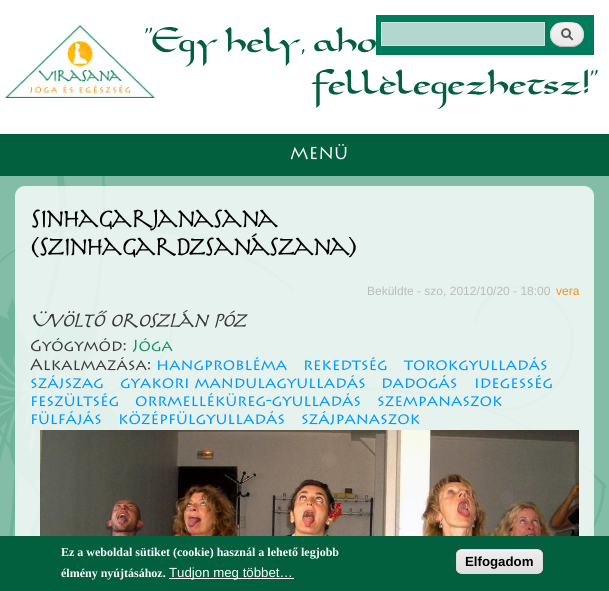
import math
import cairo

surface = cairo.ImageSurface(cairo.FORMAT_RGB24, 609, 591)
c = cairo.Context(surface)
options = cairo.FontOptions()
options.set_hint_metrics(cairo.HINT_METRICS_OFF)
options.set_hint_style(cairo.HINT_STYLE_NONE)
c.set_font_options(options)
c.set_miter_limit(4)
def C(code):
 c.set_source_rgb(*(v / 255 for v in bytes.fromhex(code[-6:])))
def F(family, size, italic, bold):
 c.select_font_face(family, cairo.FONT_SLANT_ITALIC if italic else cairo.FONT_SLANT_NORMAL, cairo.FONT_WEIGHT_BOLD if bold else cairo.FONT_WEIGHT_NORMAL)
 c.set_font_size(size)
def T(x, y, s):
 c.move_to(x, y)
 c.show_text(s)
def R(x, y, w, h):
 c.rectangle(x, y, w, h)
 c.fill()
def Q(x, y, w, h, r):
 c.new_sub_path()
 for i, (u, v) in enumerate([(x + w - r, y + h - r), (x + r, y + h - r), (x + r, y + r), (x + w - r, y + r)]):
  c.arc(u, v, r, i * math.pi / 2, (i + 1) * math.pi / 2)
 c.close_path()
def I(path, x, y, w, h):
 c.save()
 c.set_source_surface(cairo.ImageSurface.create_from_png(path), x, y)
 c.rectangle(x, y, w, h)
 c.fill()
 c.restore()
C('ffffff')
c.paint()
I('1.png',0,176,607,360)
I('2.png',145,27,453,82)
I('3.png',5,25,150,73)
C('007b5b')
R(376,15,218,40)
C('b3d7ce')
c.rectangle(381.5,22.5,163,23)
c.fill_preserve()
C('cae3dd')
c.set_line_width(1)
c.stroke()
I('4.png',550,23,34,24)
c.new_path()
c.move_to(554,26)
c.curve_to(557.5,22.5,562,22.5,567,22.5)
c.curve_to(572,22.5,576.5,22.5,580,26)
C('e4e4e4')
c.stroke()
c.new_path()
c.move_to(580,26)
c.curve_to(584.5,30.5,584.5,38.5,580,43)
C('d2d2d2')
c.stroke()
c.new_path()
c.move_to(580,43)
c.curve_to(576.5,46.5,572,46.5,567,46.5)
c.curve_to(562,46.5,557.5,46.5,554,43)
C('b4b4b4')
c.stroke()
c.new_path()
c.move_to(554,43)
c.curve_to(549.5,38.5,549.5,30.5,554,26)
C('d2d2d2')
c.stroke()
C('02603f')
R(0,134,609,42)
I('5.png',290,143,57,17)
c.set_source_rgba(0.035,0.49,0.322,0.5)
R(0,176,609,360)
c.set_source_rgba(1,1,1,0.8)
Q(15,186,579,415,10)
c.fill()
F('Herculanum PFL',28,0,0)
C('000000')
T(30,227,'Sinhagarjanasana')
T(30,255,'(Szinhagardzsanászana)')
F('Liberation Sans',12,0,0)
C('bbbbbb')
T(367,295,'Beküldte - szo, 2012/10/20 - 18:00')
C('f39314')
T(556,295,'vera')
F('Herculanum PFL',22,1,0)
C('3b3b3b')
T(30,327,'Üvöltő oroszlán póz')
I('6.png',31,338,95,14)
I('7.png',132,338,41,14)
I('8.png',30,357,120,14)
I('9.png',158,357,129,14)
I('10.png',305,357,82,14)
I('11.png',403,357,144,14)
I('12.png',31,375,72,14)
I('13.png',120,375,245,14)
I('14.png',383,375,74,14)
I('15.png',476,375,76,14)
I('16.png',32,393,86,14)
I('17.png',135,393,225,14)
I('18.png',378,396,124,11)
I('19.png',32,411,69,14)
I('20.png',120,411,164,14)
I('21.png',302,411,118,14)
I('22.png',40,430,539,106)
C('02603f')
R(0,536,609,55)
F('Liberation Serif',12,0,1)
C('ffffff')
T(61,556,'Ez a weboldal sütiket (cookie) használ a lehető legjobb')
T(61,577,'élmény nyújtásához.')
R(169,578,125,1)
F('Liberation Sans',13.25,0,0)
T(169,577,'Tudjon meg többet…')
c.save()
Q(456,549,87,25,6)
c.clip()
gradient = cairo.LinearGradient(500,550,500,573)
gradient.add_color_stop_rgba(.05,0.929,0.929,0.929,1)
gradient.add_color_stop_rgba(1,0.875,0.875,0.875,1)
c.set_source(gradient)
R(456,550,87,23)
c.restore()
c.new_path()
c.move_to(462,551)
c.line_to(537,551)
c.curve_to(540,551,542,553,542,556)
c.curve_to(542,547,530,550,524,550)
c.line_to(474,550)
c.curve_to(469,550,457,547,457,556)
c.curve_to(457,553,459,551,462,551)
c.close_path()
c.fill()
Q(456.5,549.5,86,24,5.5)
C('dcdcdc')
c.stroke()
F('Liberation Sans',13.25,0,1)
C('000000')
T(465,566,'Elfogadom')
surface.write_to_png('o.png')
